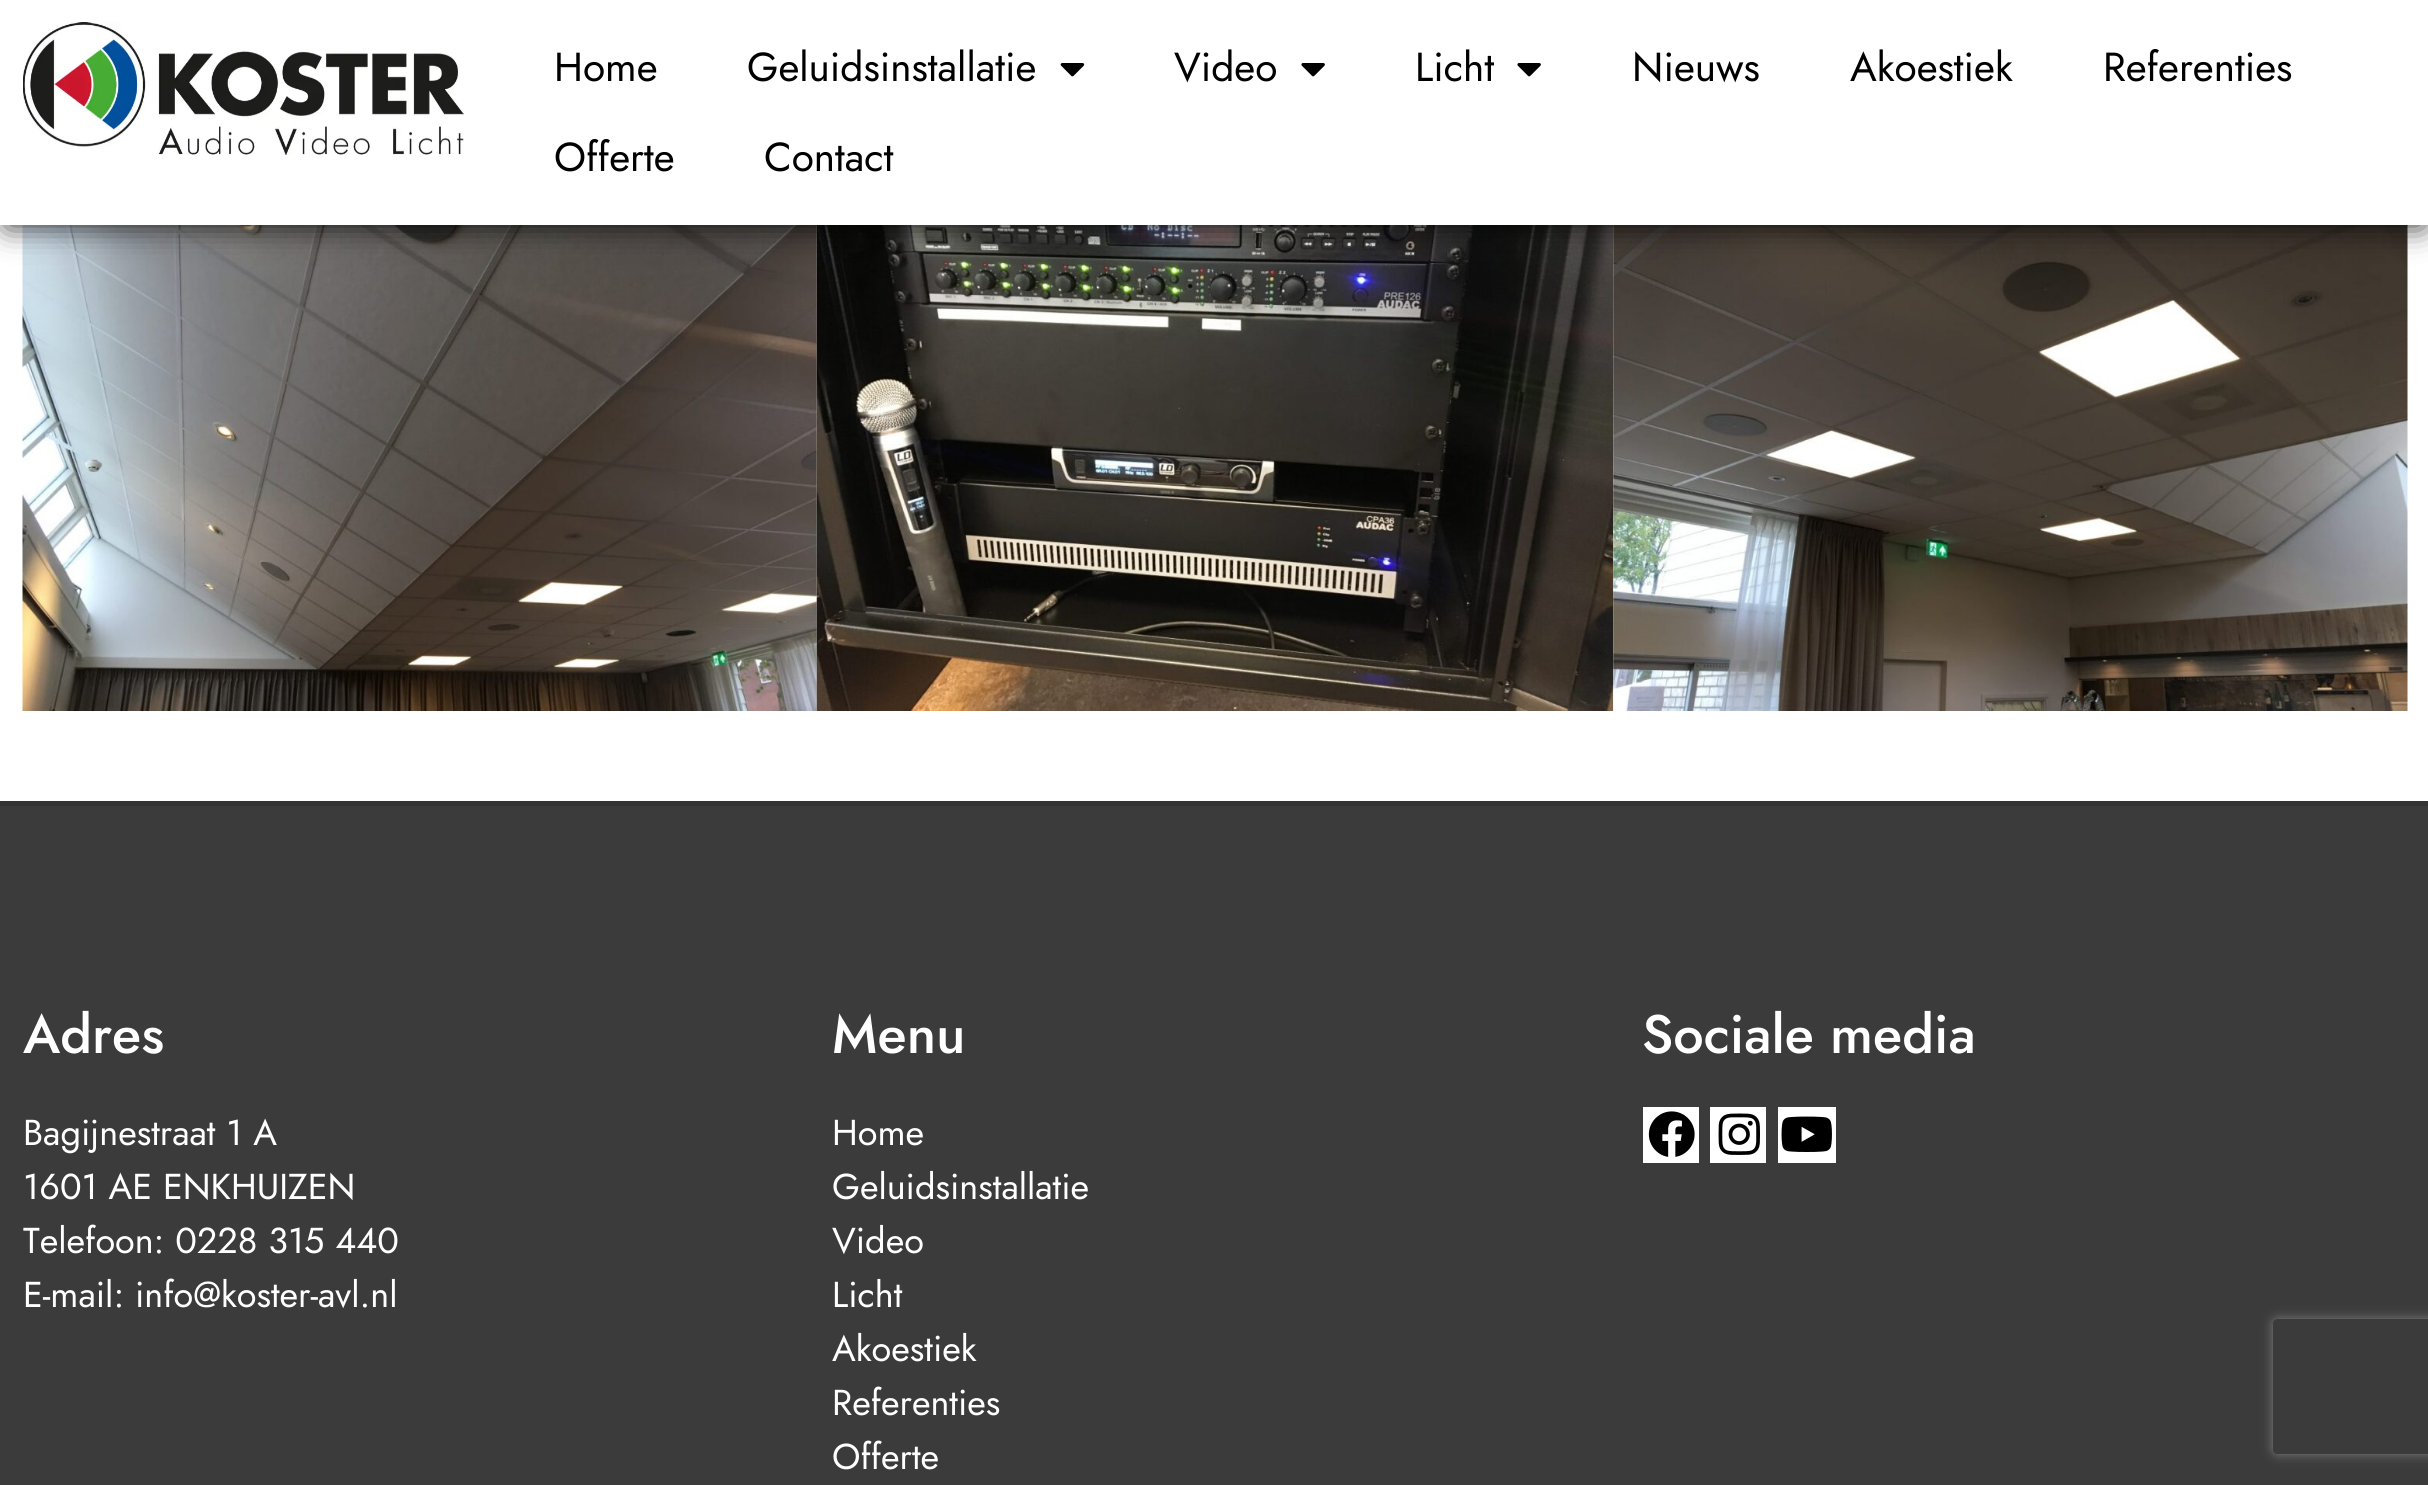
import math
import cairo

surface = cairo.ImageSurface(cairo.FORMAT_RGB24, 2428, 1485)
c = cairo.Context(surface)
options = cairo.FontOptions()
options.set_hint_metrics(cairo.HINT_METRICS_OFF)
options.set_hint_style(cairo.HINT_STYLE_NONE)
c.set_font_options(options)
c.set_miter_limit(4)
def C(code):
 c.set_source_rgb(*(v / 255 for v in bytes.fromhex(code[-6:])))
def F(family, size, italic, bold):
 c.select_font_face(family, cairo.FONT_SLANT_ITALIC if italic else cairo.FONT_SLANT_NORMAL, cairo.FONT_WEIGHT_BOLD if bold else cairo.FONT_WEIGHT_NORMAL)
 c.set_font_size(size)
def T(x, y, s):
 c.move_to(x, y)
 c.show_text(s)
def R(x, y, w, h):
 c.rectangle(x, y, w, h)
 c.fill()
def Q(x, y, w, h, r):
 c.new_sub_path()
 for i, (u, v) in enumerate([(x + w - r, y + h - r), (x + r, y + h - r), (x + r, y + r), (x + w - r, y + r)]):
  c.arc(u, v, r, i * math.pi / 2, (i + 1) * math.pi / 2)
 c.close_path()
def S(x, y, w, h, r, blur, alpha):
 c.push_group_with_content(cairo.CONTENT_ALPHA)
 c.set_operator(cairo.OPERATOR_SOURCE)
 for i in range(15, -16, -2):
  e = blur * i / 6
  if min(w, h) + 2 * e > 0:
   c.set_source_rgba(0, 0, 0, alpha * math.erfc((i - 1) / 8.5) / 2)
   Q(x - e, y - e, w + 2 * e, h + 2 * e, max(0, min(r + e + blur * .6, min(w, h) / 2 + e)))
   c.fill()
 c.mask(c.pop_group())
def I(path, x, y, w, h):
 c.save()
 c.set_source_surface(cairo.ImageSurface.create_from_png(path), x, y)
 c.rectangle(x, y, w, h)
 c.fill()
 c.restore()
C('ffffff')
c.paint()
I('4.png',22,225,795,486)
I('5.png',816,225,798,486)
I('6.png',1613,225,795,486)
C('000000')
S(7,14,2416,211,0,16,.85)
C('ffffff')
R(0,0,2428,225)
I('1.png',23,22,441,133)
F('Jost',40.5,0,0)
C('000000')
T(554,81,'Home')
T(747,81,'Geluidsinstallatie')
I('2.png',1060,63,25,14)
T(1174,81,'Video')
I('3.png',1301,63,24,14)
T(1415,81,'Licht')
I('3.png',1517,63,24,14)
T(1632,81,'Nieuws')
T(1850,81,'Akoestiek')
T(2103,81,'Referenties')
T(554,171,'Offerte')
T(764,171,'Contact')
C('3b3b3b')
R(0,806,2428,679)
C('333333')
R(0,801,2428,5)
F('Jost Medium',54,0,0)
C('ffffff')
T(23,1053,'Adres')
F('Jost',36,0,0)
T(23,1145,'Bagijnestraat 1 A')
T(23,1199,'1601 AE ENKHUIZEN')
T(23,1253,'Telefoon: 0228 315 440')
T(23,1307,'E-mail: info@koster-avl.nl')
F('Jost Medium',54,0,0)
T(832,1053,'Menu')
F('Jost',36,0,0)
T(832,1145,'Home')
T(832,1199,'Geluidsinstallatie')
T(832,1253,'Video')
T(832,1307,'Licht')
T(832,1361,'Akoestiek')
T(832,1415,'Referenties')
T(832,1469,'Offerte')
F('Jost Medium',54,0,0)
T(1642,1053,'Sociale media')
R(1643,1107,56,56)
I('7.png',1648,1111,47,46)
R(1710,1107,56,56)
I('8.png',1718,1113,42,42)
R(1778,1107,58,56)
I('9.png',1781,1116,51,36)
c.save()
c.set_fill_rule(cairo.FILL_RULE_EVEN_ODD)
c.new_path()
c.move_to(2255,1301)
c.line_to(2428,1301)
c.line_to(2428,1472)
c.line_to(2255,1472)
c.close_path()
c.move_to(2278,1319)
c.line_to(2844,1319)
c.curve_to(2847,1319,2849,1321,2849,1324)
c.line_to(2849,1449)
c.curve_to(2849,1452,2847,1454,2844,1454)
c.line_to(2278,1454)
c.curve_to(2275,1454,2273,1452,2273,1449)
c.line_to(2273,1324)
c.curve_to(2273,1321,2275,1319,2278,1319)
c.close_path()
c.clip()
C('808080')
S(2273,1319,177,135,5,5.5,1)
c.restore()
surface.write_to_png('o.png')
